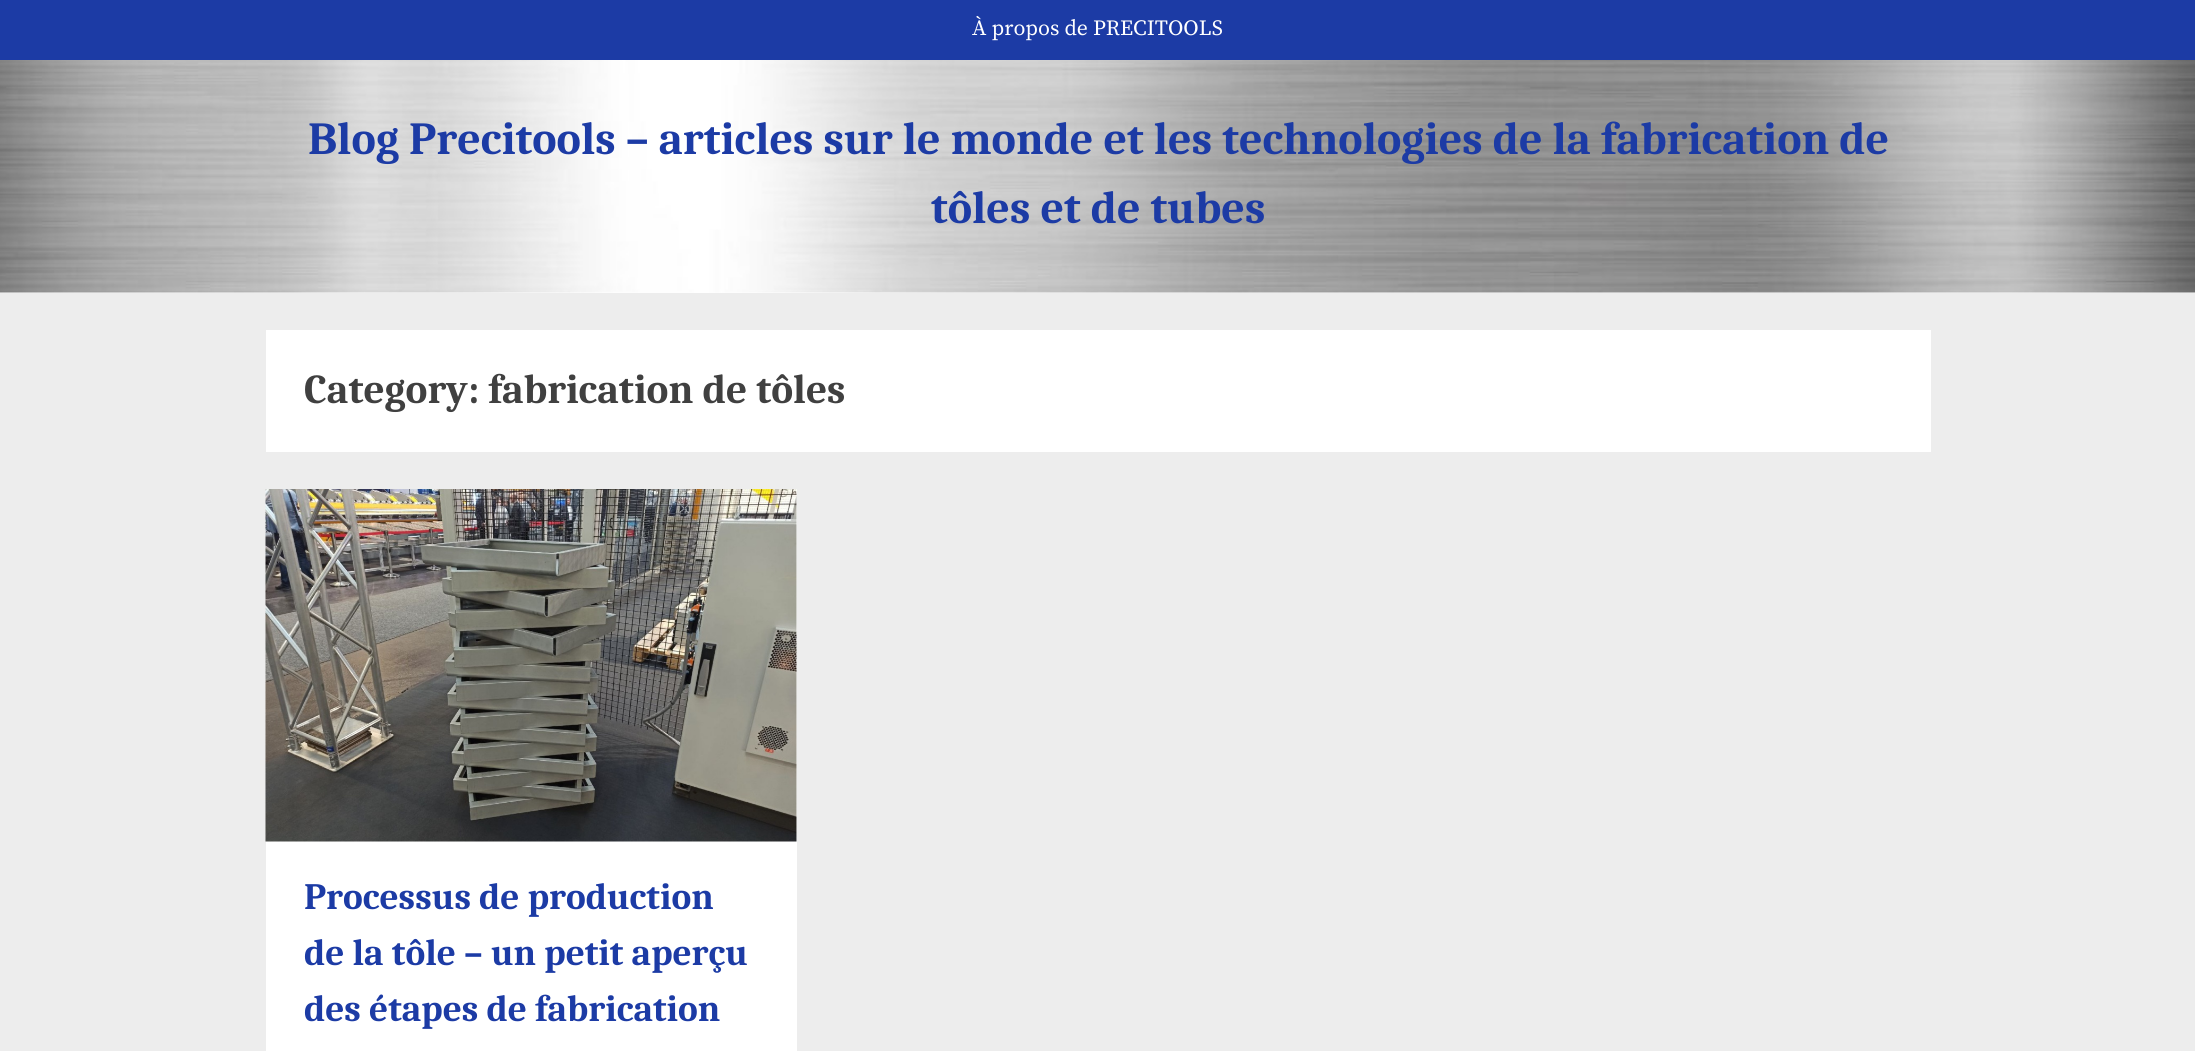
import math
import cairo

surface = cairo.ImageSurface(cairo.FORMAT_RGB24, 2195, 1051)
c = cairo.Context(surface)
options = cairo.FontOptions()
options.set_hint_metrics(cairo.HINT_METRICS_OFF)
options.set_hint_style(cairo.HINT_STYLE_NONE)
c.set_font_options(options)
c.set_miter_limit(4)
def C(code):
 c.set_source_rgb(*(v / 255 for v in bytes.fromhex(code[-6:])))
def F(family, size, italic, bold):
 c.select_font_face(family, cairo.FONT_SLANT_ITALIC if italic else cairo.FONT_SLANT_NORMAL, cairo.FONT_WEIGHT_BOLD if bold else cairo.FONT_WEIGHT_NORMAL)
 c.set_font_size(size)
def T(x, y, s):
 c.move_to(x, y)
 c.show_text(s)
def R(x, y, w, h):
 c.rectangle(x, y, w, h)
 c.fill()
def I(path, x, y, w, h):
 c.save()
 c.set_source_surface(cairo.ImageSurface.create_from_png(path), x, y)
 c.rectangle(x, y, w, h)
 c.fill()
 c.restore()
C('ededed')
c.paint()
C('1c3ba5')
R(0,0,2195,60)
F('Source Serif Pro',21.75,0,0)
C('ffffff')
T(972,35,'À propos de PRECITOOLS')
R(0,292,2195,1)
I('1.png',0,60,2195,233)
F('Caladea',45.9,0,1)
C('1c3ba5')
T(308,154,'Blog Precitools – articles sur le monde et les technologies de la fabrication de')
T(931,223,'tôles et de tubes')
C('ffffff')
R(266,330,1665,122)
F('Caladea',41.25,0,1)
C('404040')
T(304,403,'Category: fabrication de tôles')
C('ffffff')
R(266,489,531,562)
I('2.png',265,489,532,353)
F('Caladea',37.25,0,1)
C('1c3ba5')
T(304,909,'Processus de production')
T(304,965,'de la tôle – un petit aperçu')
T(304,1021,'des étapes de fabrication')
surface.write_to_png('o.png')
